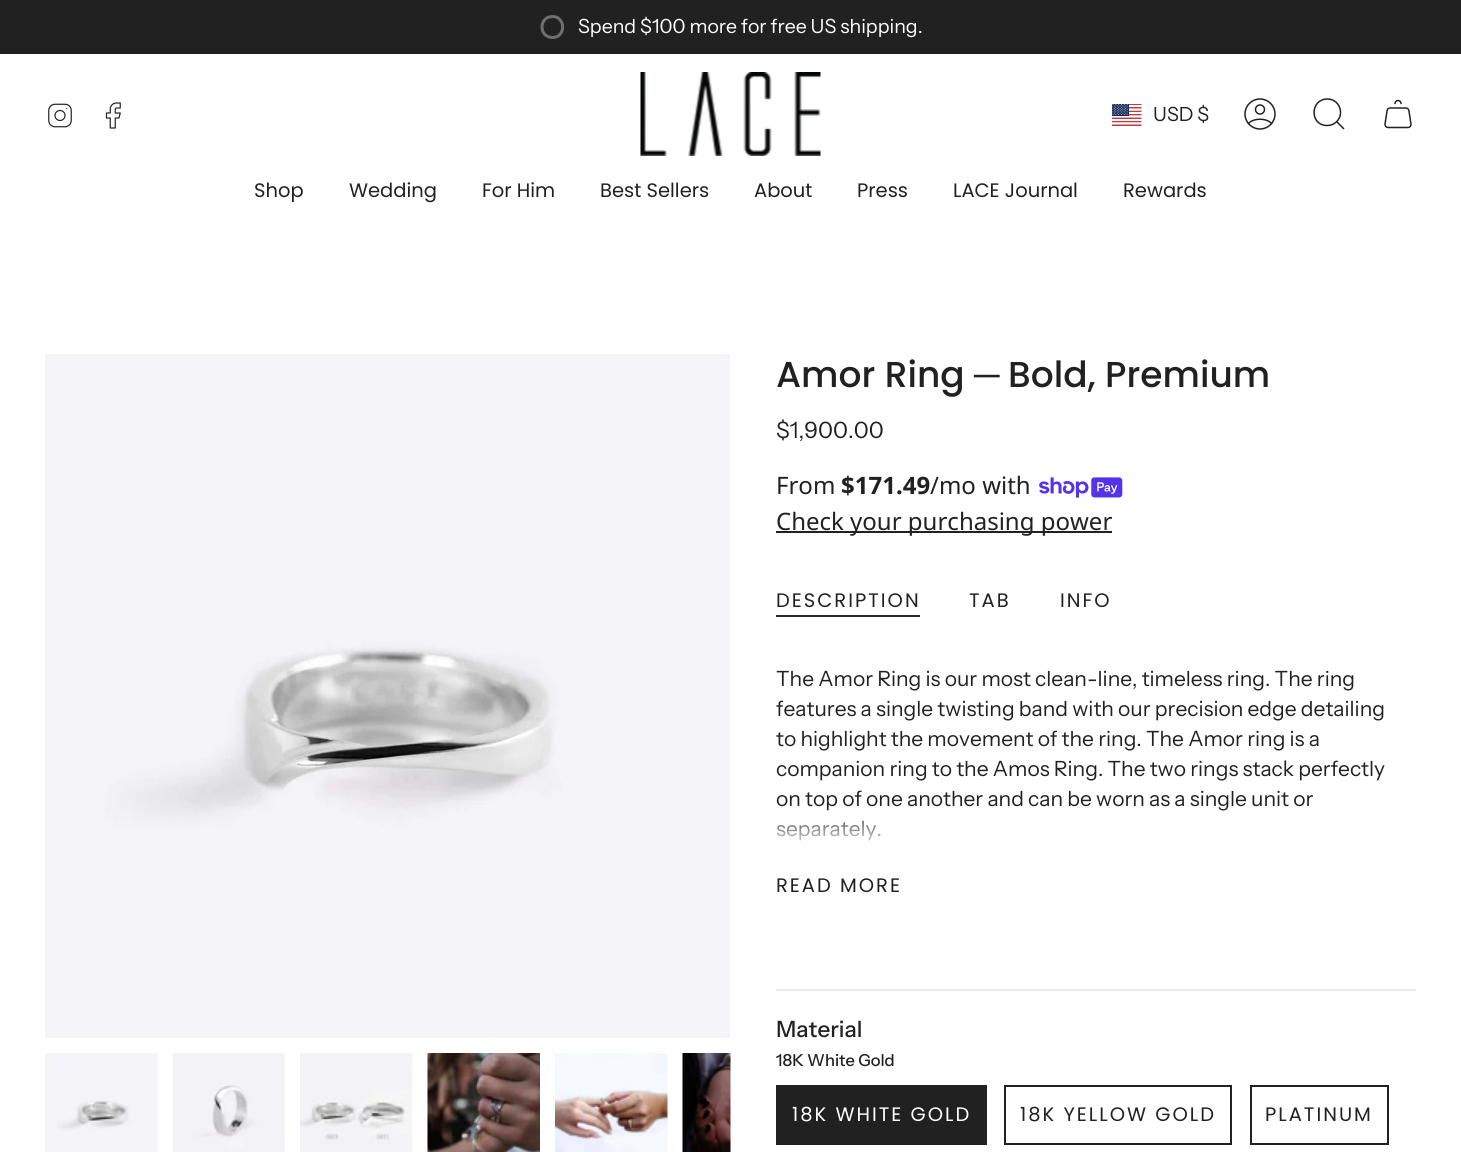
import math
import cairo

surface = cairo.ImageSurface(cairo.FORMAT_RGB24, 1461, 1152)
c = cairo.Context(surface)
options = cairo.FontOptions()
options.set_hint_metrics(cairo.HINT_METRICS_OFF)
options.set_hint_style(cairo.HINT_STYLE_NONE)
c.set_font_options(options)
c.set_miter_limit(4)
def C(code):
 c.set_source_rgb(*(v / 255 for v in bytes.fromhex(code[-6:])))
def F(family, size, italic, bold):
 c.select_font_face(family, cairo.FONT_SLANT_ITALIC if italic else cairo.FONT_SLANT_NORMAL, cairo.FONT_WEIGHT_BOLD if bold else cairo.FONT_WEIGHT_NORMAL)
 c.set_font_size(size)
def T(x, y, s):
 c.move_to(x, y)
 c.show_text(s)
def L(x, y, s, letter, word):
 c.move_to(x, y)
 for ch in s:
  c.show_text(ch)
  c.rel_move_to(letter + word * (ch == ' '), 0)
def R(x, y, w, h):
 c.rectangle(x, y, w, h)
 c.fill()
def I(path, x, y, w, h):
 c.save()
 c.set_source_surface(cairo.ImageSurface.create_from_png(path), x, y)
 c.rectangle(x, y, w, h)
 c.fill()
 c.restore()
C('ffffff')
c.paint()
C('212121')
R(0,0,1461,54)
c.new_path()
c.move_to(552.5,16.5)
c.curve_to(538.5,16.5,538.5,37.5,552.5,37.5)
c.curve_to(566,37.5,566,16.5,552.5,16.5)
c.close_path()
C('6f6f6f')
c.set_line_width(3)
c.stroke()
F('Instrument Sans',19.5,0,0)
C('ffffff')
T(578,33,'Spend $100 more for free US shipping.')
I('1.png',48,103,24,25)
I('2.png',105,102,16,27)
I('3.png',640,72,181,84)
I('4.png',1112,104,30,22)
C('212121')
T(1153,121,'USD $')
I('5.png',1244,98,32,32)
c.new_path()
c.move_to(1327.5,99)
c.curve_to(1340,99,1345.5,115.5,1335,123)
c.curve_to(1332.5,125,1329.5,125.5,1326.5,125.5)
c.curve_to(1309.5,125,1310,99,1327.5,99)
c.close_path()
c.move_to(1336.5,121.5)
c.line_to(1344,129)
c.set_line_width(1.5)
c.stroke()
I('6.png',1384,99,28,30)
F('Poppins',19.5,0,0)
T(254,197,'Shop')
T(349,197,'Wedding')
T(482,197,'For Him')
T(600,197,'Best Sellers')
T(754,197,'About')
T(857,197,'Press')
T(953,197,'LACE Journal')
T(1123,197,'Rewards')
I('7.png',45,354,685,684)
I('8.png',45,1053,113,99)
I('9.png',172,1053,113,99)
I('10.png',300,1053,113,99)
I('11.png',427,1053,113,99)
I('12.png',555,1053,113,99)
I('13.png',682,1053,49,99)
F('Poppins Medium',36,0,0)
T(776,387,'Amor Ring')
F('Liberation Sans',36,0,0)
T(974,387,'─')
F('Poppins Medium',36,0,0)
T(1008,387,'Bold, Premium')
F('Instrument Sans',22.5,0,0)
T(776,438,'$1,900.00')
F('Noto Sans',24,0,0)
T(776,494,'From')
F('Noto Sans',24,0,1)
T(841,494,'$171.49')
F('Noto Sans',24,0,0)
T(930,494,'/mo with')
I('14.png',1039,477,84,21)
R(776,531,336,2)
T(776,530,'Check your purchasing power')
F('Poppins',19.5,0,0)
L(776,607,'DESCRIPTION',2,0)
C('282c2e')
R(776,615,144,2)
C('212121')
L(969,607,'TAB',2,0)
L(1060,607,'INFO',2,0)
F('Instrument Sans',21,0,0)
T(776,686,'The Amor Ring is our most clean-line, timeless ring. The ring')
T(776,716,'features a single twisting band with our precision edge detailing')
T(776,746,'to highlight the movement of the ring. The Amor ring is a')
T(776,776,'companion ring to the Amos Ring. The two rings stack perfectly')
T(776,806,'on top of one another and can be worn as a single unit or')
T(776,836,'separately.')
gradient = cairo.LinearGradient(1085,807,1085,852)
gradient.add_color_stop_rgba(0,1,1,1,0)
gradient.add_color_stop_rgba(1,1,1,1,1)
c.set_source(gradient)
R(776,808,451,33)
F('Poppins',19.5,0,0)
C('212121')
L(776,892,'READ MORE',2,0)
C('eaeaea')
R(776,989,640,2)
F('Instrument Sans Medium',22.5,0,0)
C('212121')
T(776,1037,'Material')
F('Instrument Sans Medium',16.5,0,0)
T(776,1066,'18K White Gold')
R(776,1085,211,60)
F('Poppins',19.5,0,0)
C('ffffff')
L(792,1121,'18K WHITE GOLD',2,0)
c.rectangle(1005,1086,226,58)
C('212121')
c.set_line_width(2)
c.stroke()
L(1020,1121,'18K YELLOW GOLD',2,0)
c.rectangle(1251,1086,137,58)
c.stroke()
L(1265,1121,'PLATINUM',2,0)
surface.write_to_png('o.png')
